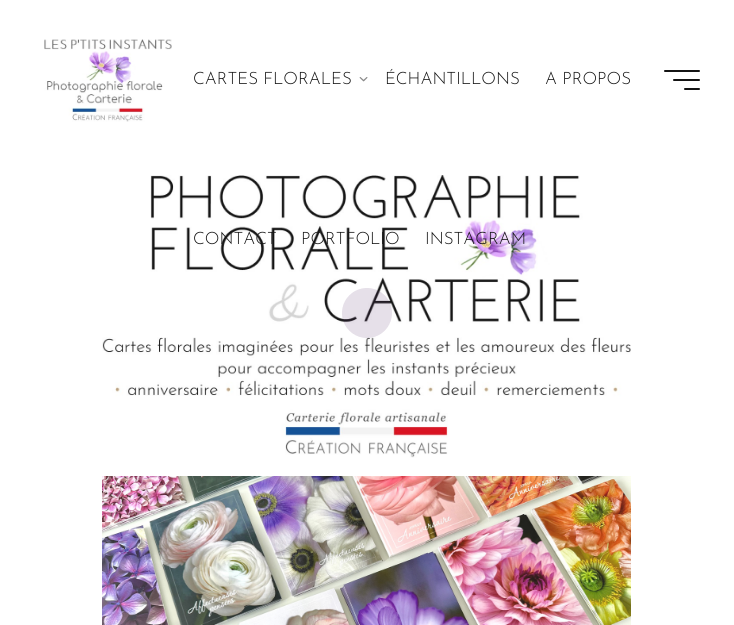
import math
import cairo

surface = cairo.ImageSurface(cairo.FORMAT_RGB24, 734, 625)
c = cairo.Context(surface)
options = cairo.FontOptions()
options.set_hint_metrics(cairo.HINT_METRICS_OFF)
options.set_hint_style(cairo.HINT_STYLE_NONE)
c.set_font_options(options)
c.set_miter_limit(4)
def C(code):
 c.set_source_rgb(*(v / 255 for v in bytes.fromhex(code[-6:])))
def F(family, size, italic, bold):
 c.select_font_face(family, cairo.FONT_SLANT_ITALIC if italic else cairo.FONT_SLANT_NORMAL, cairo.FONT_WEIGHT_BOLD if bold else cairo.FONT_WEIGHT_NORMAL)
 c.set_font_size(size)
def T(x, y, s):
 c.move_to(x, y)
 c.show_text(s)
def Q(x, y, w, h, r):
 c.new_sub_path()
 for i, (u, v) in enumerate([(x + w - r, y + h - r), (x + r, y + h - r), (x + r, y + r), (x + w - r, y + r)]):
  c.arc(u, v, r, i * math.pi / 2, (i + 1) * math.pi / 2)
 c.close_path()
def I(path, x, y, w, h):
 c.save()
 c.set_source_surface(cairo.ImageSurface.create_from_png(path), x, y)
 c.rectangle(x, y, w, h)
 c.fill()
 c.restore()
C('ffffff')
c.paint()
I('1.png',44,39,128,83)
F('Josefin Sans Light',17,0,0)
C('141414')
T(193,84,'CARTES FLORALES')
I('2.png',359,77,9,5)
T(385,84,'ÉCHANTILLONS')
T(545,84,'A PROPOS')
I('3.png',102,175,529,283)
T(193,244,'CONTACT')
T(301,244,'PORTFOLIO')
T(425,244,'INSTAGRAM')
Q(664,70,36,2,1)
c.fill()
Q(673,79,27,2,1)
c.fill()
Q(684,88,16,2,1)
c.fill()
I('4.png',102,476,529,149)
c.set_source_rgba(0,0,0,0.08)
c.arc(367,313,25,0,2 * math.pi)
c.fill()
c.set_source_rgba(0.667,0.361,0.827,0.08)
c.arc(367,313,25,0,2 * math.pi)
c.fill()
surface.write_to_png('o.png')
